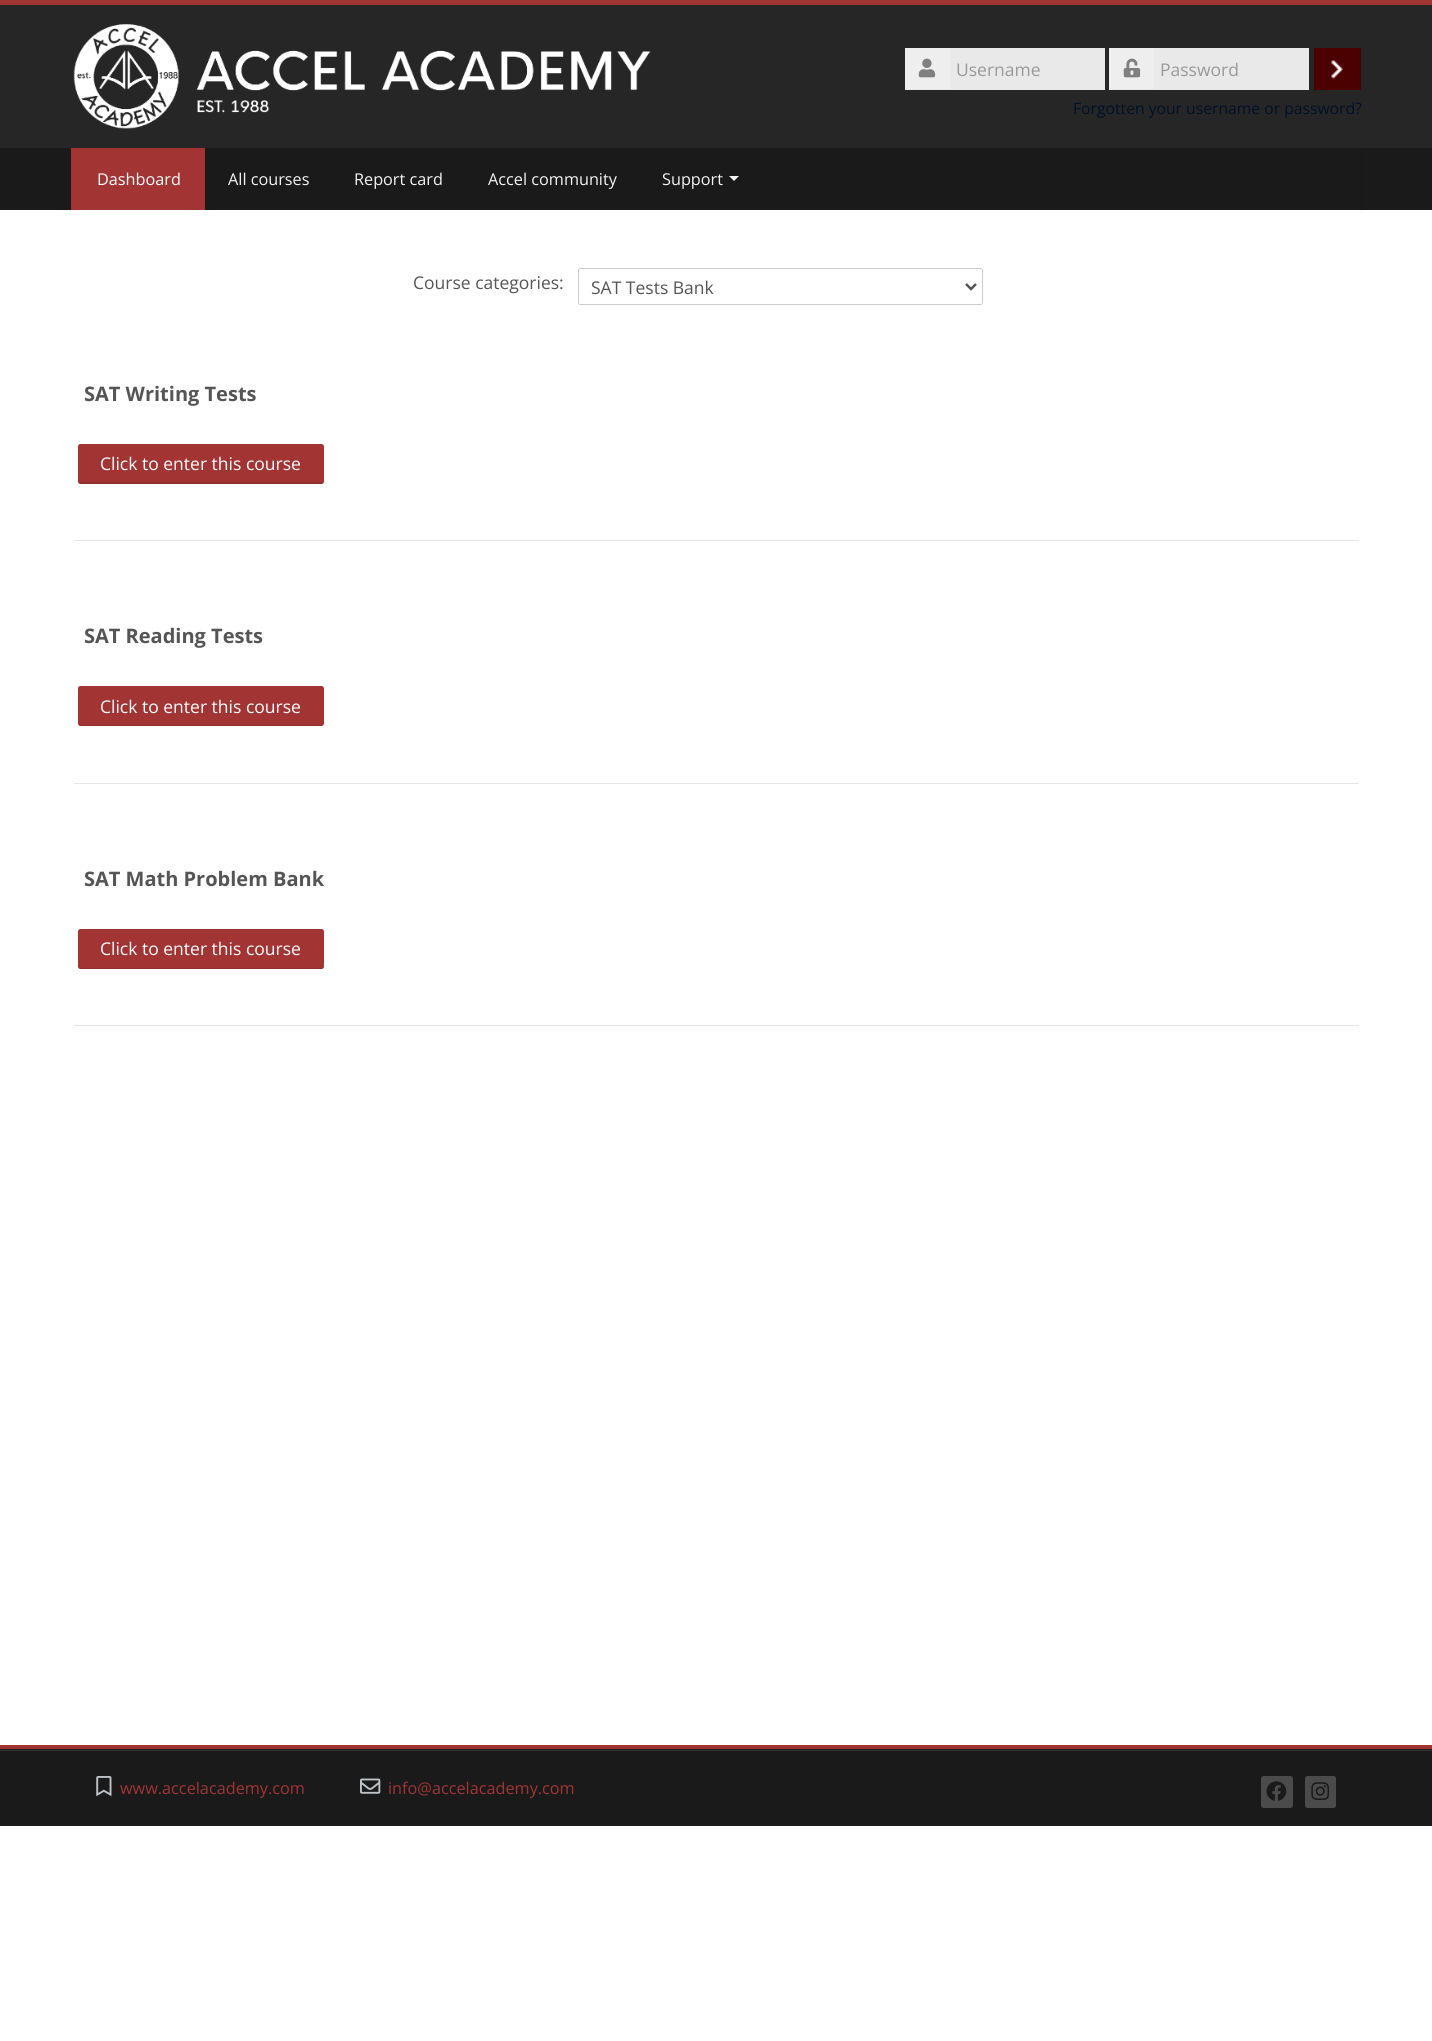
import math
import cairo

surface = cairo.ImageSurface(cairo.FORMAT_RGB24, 1432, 2041)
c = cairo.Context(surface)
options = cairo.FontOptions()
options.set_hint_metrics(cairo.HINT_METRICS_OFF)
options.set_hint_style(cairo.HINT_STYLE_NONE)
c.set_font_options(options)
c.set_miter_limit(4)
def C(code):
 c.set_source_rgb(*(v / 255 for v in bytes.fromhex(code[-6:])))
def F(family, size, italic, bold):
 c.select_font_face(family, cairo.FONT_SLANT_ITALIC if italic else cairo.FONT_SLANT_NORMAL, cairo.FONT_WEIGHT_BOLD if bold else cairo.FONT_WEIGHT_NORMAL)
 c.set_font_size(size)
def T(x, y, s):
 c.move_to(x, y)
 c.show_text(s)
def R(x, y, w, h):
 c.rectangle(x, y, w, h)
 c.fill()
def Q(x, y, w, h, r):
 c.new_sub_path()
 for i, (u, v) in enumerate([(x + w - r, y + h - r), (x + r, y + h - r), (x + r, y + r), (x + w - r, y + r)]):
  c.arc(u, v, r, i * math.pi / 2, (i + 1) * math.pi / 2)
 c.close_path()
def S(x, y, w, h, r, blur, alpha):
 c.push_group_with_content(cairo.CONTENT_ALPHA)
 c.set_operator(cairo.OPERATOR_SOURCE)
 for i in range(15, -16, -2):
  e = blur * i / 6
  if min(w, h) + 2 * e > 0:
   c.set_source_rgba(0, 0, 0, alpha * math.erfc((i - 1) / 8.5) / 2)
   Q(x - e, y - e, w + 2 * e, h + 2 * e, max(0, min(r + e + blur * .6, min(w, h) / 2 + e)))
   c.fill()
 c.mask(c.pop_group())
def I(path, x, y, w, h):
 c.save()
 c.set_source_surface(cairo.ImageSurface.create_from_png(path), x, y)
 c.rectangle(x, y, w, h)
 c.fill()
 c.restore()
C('ffffff')
c.paint()
C('a23434')
R(0,0,1432,5)
C('262626')
R(0,5,1432,143)
I('1.png',73,24,578,105)
C('e9e9e9')
R(905,48,200,42)
C('eeeeee')
R(905,48,45,41)
I('2.png',918,58,18,20)
F('Open Sans',17.5,0,0)
C('999999')
T(956,76,'Username')
C('e9e9e9')
R(1109,48,200,42)
C('eeeeee')
R(1109,48,45,41)
I('3.png',1123,58,18,20)
C('999999')
T(1160,76,'Password')
C('4c0101')
R(1314,48,47,42)
I('4.png',1331,60,12,19)
F('Open Sans',15.7,0,0)
C('001128')
T(1073,114,'Forgotten your username or password?')
C('1a1a1a')
R(0,148,1432,62)
c.save()
c.set_fill_rule(cairo.FILL_RULE_EVEN_ODD)
c.new_path()
c.move_to(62,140)
c.line_to(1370,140)
c.line_to(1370,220)
c.line_to(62,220)
c.close_path()
c.move_to(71,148)
c.line_to(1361,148)
c.line_to(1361,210)
c.line_to(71,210)
c.close_path()
c.clip()
C('000000')
S(71,149,1290,62,0,2.5,.07)
c.restore()
C('a23434')
R(71,148,134,62)
F('Open Sans',16.25,0,0)
C('ffffff')
T(97,185,'Dashboard')
C('f4f4f4')
T(228,185,'All courses')
T(354,185,'Report card')
T(488,185,'Accel community')
T(662,185,'Support')
c.new_path()
c.move_to(729,176)
c.line_to(739,176)
c.line_to(734,181)
c.close_path()
c.fill()
C('ffffff')
R(71,210,1290,4)
F('Open Sans',17.5,0,0)
C('555555')
T(413,289,'Course categories:')
Q(578.5,268.5,404,36,2)
C('cccccc')
c.set_line_width(1)
c.stroke()
c.new_path()
c.move_to(966,284)
c.line_to(971,289)
c.line_to(976,284)
C('555555')
c.set_line_width(2.5)
c.stroke()
T(591,294,'SAT Tests Bank')
C('e5e5e5')
R(74,540,1285,1)
F('Open Sans',20,0,1)
C('555555')
T(84,401,'SAT Writing Tests')
C('a23434')
Q(78,444,246,40,2.5)
c.fill()
c.set_source_rgba(0,0,0,0.1)
c.new_path()
c.move_to(78,480)
c.curve_to(78,482,78,484,80,484)
c.line_to(322,484)
c.curve_to(324,483,324,481,324,480)
c.curve_to(324,481,323,482,321,482)
c.line_to(80,482)
c.curve_to(79,482,78,481,78,480)
c.close_path()
c.fill()
F('Open Sans',17.5,0,0)
C('ffffff')
T(100,470,'Click to enter this course')
C('e5e5e5')
R(74,783,1285,1)
F('Open Sans',20,0,1)
C('555555')
T(84,643,'SAT Reading Tests')
C('a23434')
Q(78,686,246,40,2.5)
c.fill()
c.set_source_rgba(0,0,0,0.1)
c.new_path()
c.move_to(78,722)
c.curve_to(78,724,78,726,80,726)
c.line_to(322,726)
c.curve_to(324,725,324,723,324,722)
c.curve_to(324,724,323,725,321,725)
c.line_to(80,725)
c.curve_to(79,725,78,724,78,722)
c.close_path()
c.fill()
F('Open Sans',17.5,0,0)
C('ffffff')
T(100,713,'Click to enter this course')
C('e5e5e5')
R(74,1025,1285,1)
F('Open Sans',20,0,1)
C('555555')
T(84,886,'SAT Math Problem Bank')
C('a23434')
Q(78,929,246,40,2.5)
c.fill()
c.set_source_rgba(0,0,0,0.1)
c.new_path()
c.move_to(78,965)
c.curve_to(78,967,78,969,80,969)
c.line_to(322,969)
c.curve_to(324,968,324,966,324,965)
c.curve_to(324,966,323,968,321,968)
c.line_to(80,968)
c.curve_to(79,968,78,966,78,965)
c.close_path()
c.fill()
F('Open Sans',17.5,0,0)
C('ffffff')
T(100,955,'Click to enter this course')
C('1a1a1a')
R(0,1749,1432,1)
C('a23434')
R(0,1745,1432,4)
C('1a1a1a')
R(0,1751,1432,75)
C('343434')
R(0,1750,1432,1)
I('5.png',96,1776,16,21)
F('Open Sans',16.25,0,0)
C('a23434')
T(120,1794,'www.accelacademy.com')
I('6.png',360,1778,21,16)
T(388,1794,'info@accelacademy.com')
C('4b4b4b')
Q(1261,1776,32,32,2.5)
c.fill()
I('7.png',1266,1781,21,20)
Q(1305,1776,31,32,2.5)
c.fill()
I('8.png',1311,1782,18,18)
surface.write_to_png('o.png')
